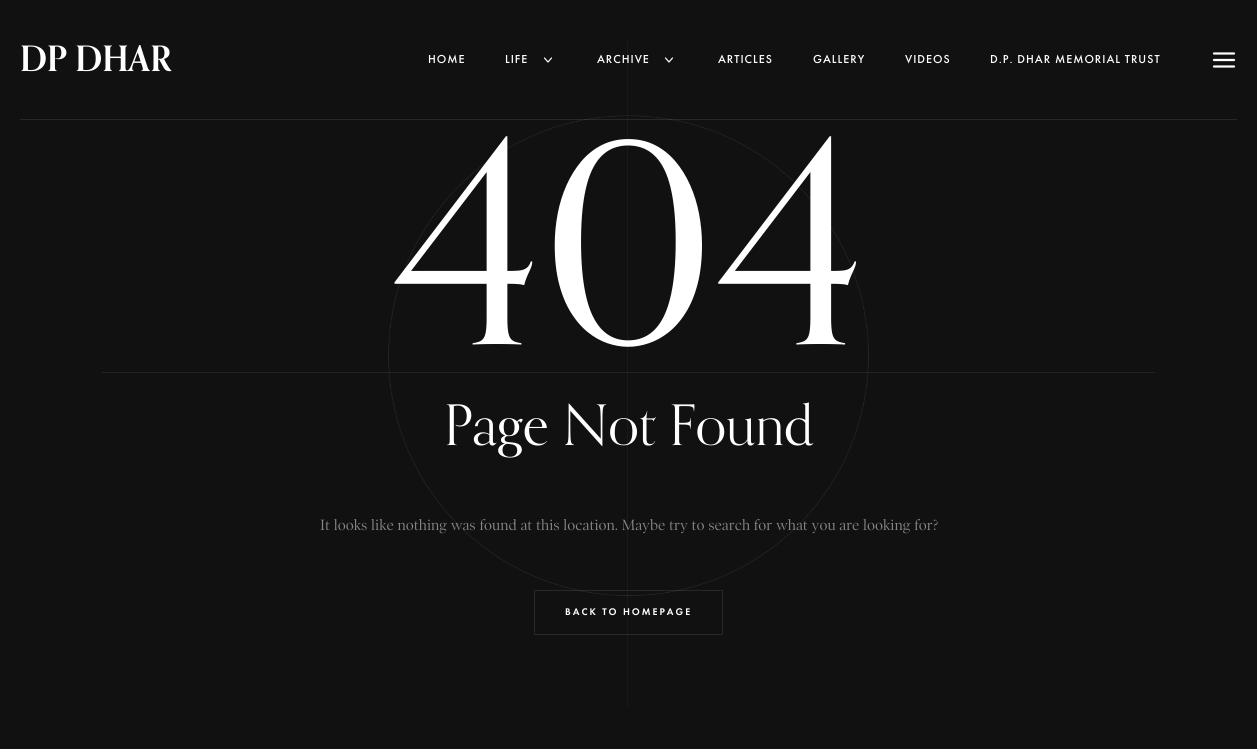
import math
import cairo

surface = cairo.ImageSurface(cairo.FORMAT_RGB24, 1257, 749)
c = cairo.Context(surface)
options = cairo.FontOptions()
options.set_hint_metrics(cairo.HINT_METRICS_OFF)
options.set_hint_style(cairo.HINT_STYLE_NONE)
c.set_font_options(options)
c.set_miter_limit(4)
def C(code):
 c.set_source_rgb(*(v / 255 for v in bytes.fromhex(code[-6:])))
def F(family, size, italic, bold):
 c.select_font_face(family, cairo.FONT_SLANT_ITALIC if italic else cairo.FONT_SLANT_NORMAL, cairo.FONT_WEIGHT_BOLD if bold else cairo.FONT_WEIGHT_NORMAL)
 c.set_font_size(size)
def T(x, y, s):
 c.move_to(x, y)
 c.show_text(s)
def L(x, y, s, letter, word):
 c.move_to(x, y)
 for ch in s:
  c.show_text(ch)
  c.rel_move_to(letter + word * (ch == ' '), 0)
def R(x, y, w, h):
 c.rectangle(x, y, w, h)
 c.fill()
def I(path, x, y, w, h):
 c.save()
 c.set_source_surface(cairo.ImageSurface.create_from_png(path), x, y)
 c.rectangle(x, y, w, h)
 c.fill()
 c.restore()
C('111111')
c.paint()
I('1.png',102,42,1053,665)
c.set_source_rgba(1,1,1,0.1)
R(20,119,1217,1)
F('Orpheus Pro',35,0,1)
C('ffffff')
T(20,71,'DP DHAR')
F('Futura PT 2 Medium',12,0,0)
L(428,63,'HOME',1,0)
L(505,63,'LIFE',1,0)
c.new_path()
c.move_to(544.5,58)
c.line_to(548,62)
c.line_to(551.5,58)
c.set_line_width(1.2)
c.set_line_cap(cairo.LINE_CAP_ROUND)
c.set_line_join(cairo.LINE_JOIN_ROUND)
c.stroke()
L(597,63,'ARCHIVE',1,0)
c.new_path()
c.move_to(665.5,58)
c.line_to(669,62)
c.line_to(672.5,58)
c.stroke()
L(718,63,'ARTICLES',1,0)
L(813,63,'GALLERY',1,0)
L(905,63,'VIDEOS',1,0)
L(990,63,'D.P. DHAR MEMORIAL TRUST',1,0)
c.new_path()
c.move_to(1214,60)
c.line_to(1234,60)
c.move_to(1214,53.5)
c.line_to(1234,53.5)
c.move_to(1214,66.5)
c.line_to(1234,66.5)
c.set_line_width(2.2)
c.stroke()
F('Orpheus Pro',280,0,0)
T(392,344,'404')
F('Orpheus Pro',56,0,0)
T(444,445,'Page Not Found')
F('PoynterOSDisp',15,0,0)
C('888888')
T(320,530,'It looks like nothing was found at this location. Maybe try to search for what you are looking for?')
c.rectangle(534.5,590.5,188,44)
c.set_source_rgba(1,1,1,0.1)
c.set_line_width(1)
c.set_line_cap(cairo.LINE_CAP_BUTT)
c.set_line_join(cairo.LINE_JOIN_MITER)
c.stroke()
F('Futura PT Medium',10,0,0)
C('ffffff')
L(565,615,'BACK TO HOMEPAGE',2,0)
surface.write_to_png('o.png')
